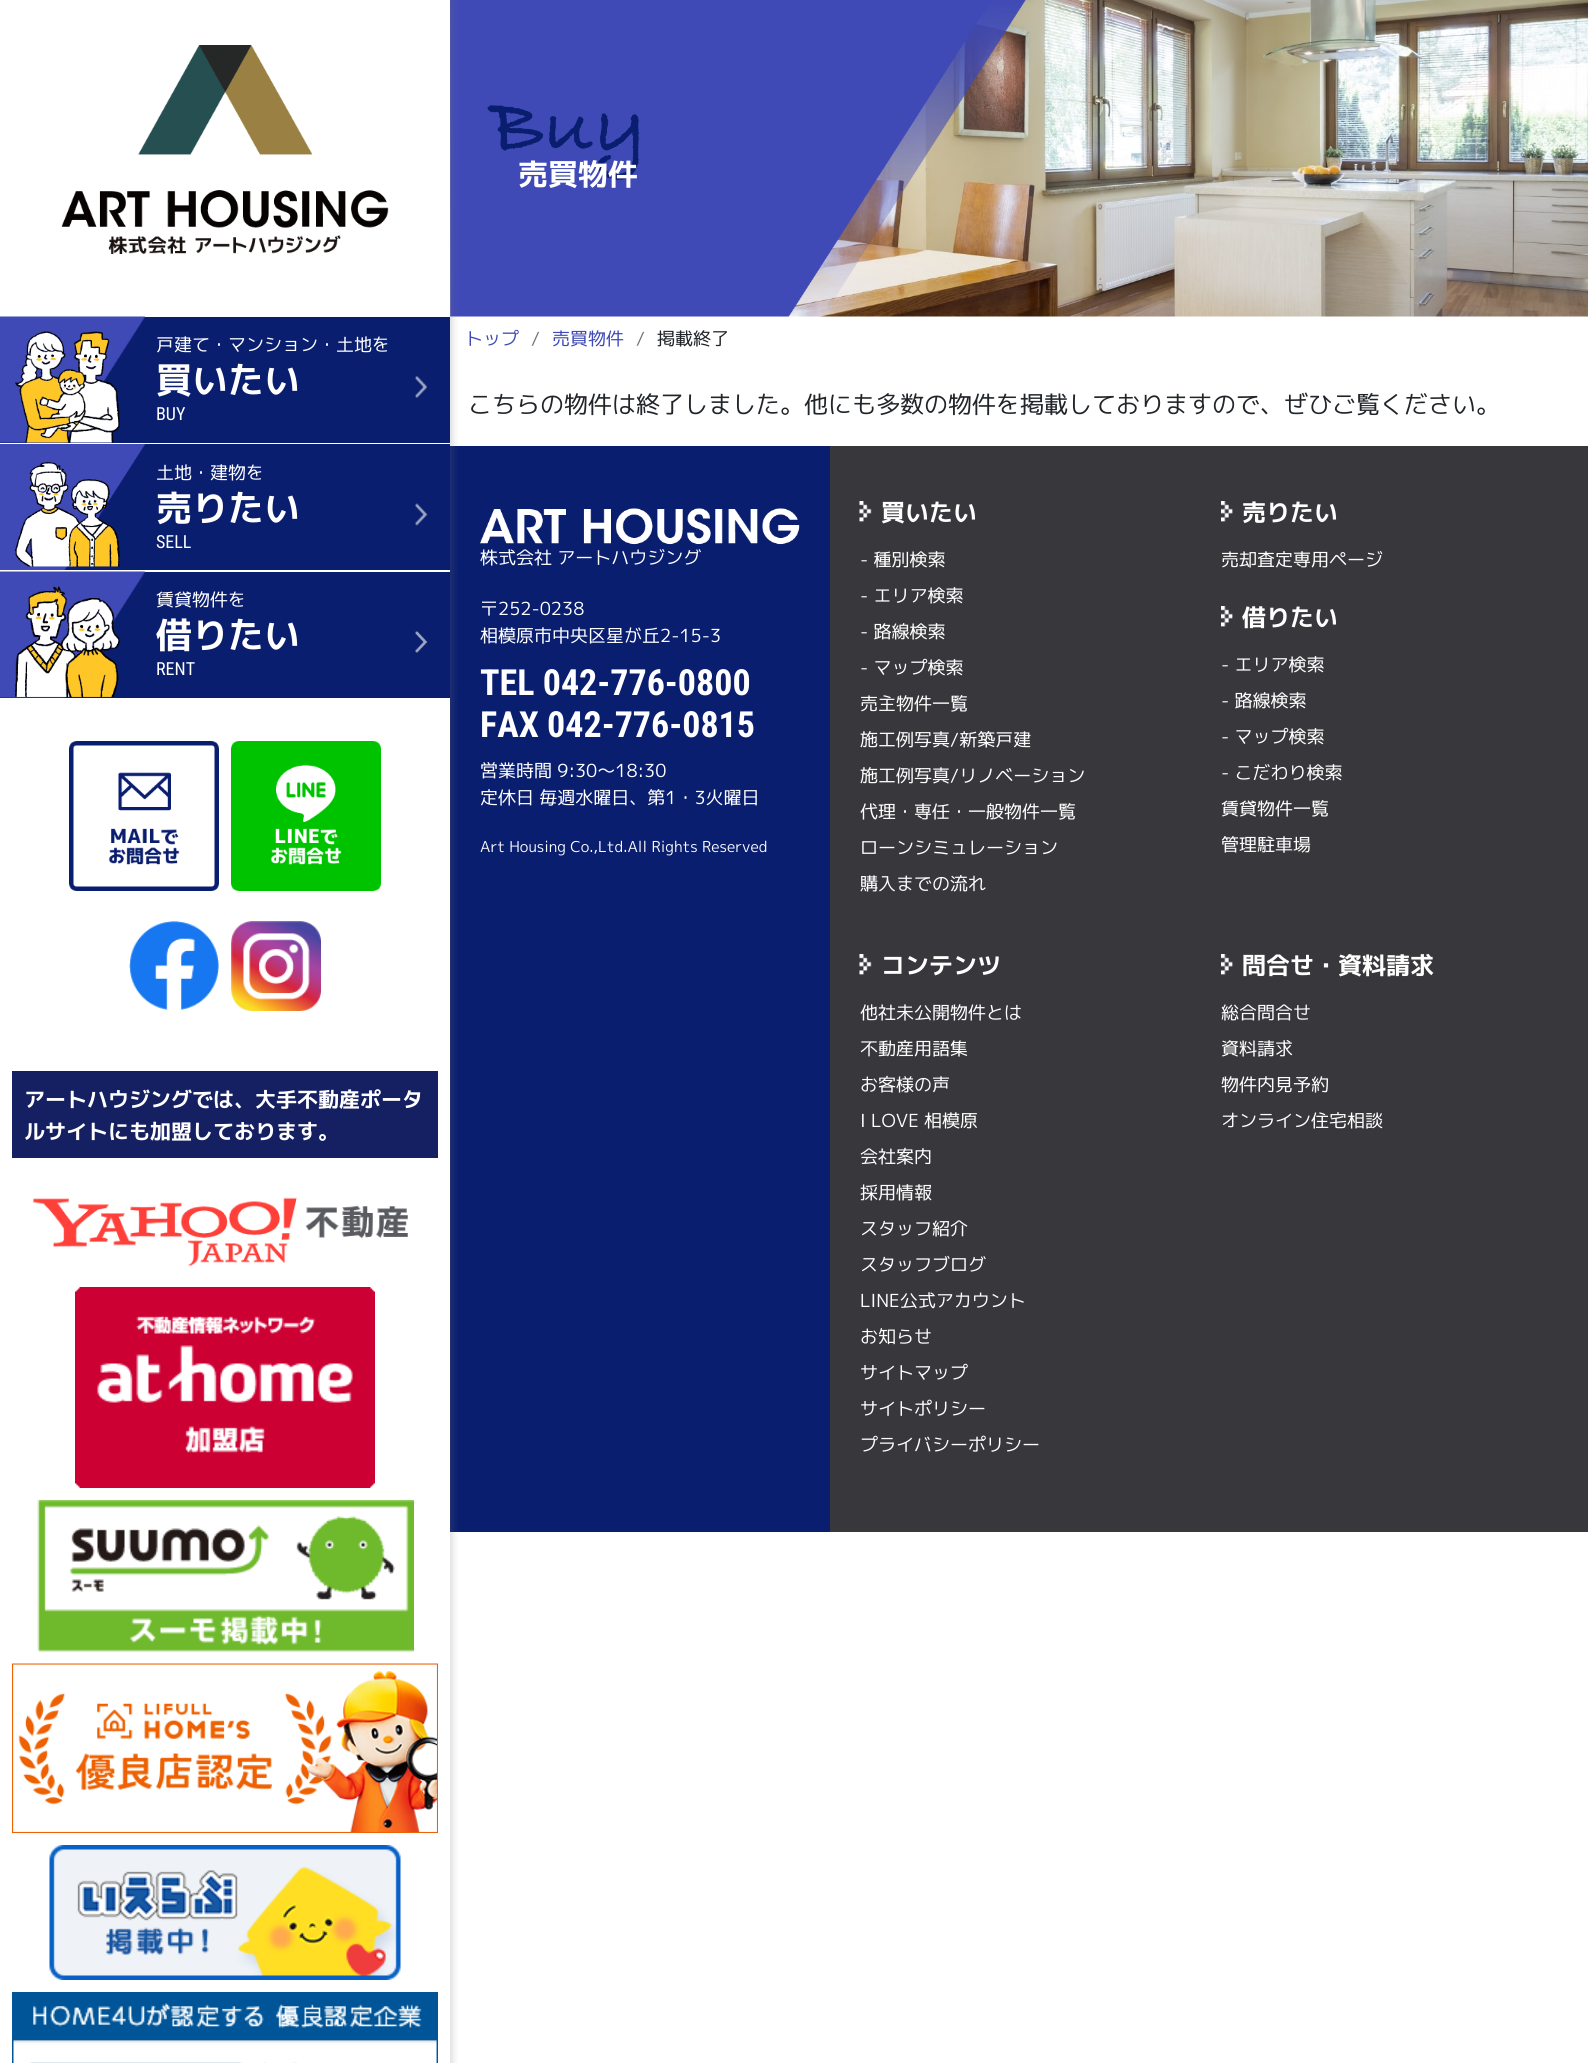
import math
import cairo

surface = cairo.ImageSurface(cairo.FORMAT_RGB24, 1588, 2063)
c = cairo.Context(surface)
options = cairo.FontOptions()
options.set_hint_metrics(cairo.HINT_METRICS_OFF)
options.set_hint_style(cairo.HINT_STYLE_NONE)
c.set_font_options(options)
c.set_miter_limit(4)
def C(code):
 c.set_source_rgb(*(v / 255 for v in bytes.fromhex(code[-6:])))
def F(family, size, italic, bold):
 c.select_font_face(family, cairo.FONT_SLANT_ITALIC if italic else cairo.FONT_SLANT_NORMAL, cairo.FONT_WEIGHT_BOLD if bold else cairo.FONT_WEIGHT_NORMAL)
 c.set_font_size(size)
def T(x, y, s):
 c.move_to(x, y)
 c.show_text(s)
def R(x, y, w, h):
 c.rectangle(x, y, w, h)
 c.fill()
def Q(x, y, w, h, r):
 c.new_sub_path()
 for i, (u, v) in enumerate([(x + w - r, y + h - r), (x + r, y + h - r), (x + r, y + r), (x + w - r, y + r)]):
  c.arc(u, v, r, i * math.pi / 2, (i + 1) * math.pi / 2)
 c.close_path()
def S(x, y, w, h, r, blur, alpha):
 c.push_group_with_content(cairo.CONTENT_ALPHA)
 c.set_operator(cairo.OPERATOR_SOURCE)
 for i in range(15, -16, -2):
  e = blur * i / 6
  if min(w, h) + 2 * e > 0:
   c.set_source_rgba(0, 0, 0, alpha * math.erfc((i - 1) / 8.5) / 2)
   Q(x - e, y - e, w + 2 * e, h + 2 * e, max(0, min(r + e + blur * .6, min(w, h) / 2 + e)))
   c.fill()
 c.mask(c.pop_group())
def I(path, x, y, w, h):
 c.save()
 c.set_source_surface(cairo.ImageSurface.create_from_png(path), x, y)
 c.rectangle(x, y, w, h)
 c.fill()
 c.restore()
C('ffffff')
c.paint()
I('22.png',780,0,808,317)
I('21.png',450,0,576,317)
C('0a1e6f')
R(450,446,380,1086)
c.save()
c.rectangle(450,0,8,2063)
c.clip()
C('737373')
S(-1,-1,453,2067,0,4,.3)
c.restore()
I('1.png',61,45,328,209)
R(0,317,450,126)
I('2.png',0,316,146,127)
I('3.png',15,331,105,112)
I('4.png',415,376,12,22)
F('M PLUS 1p',18,0,0)
C('ffffff')
T(156,351,'戸建て・マンション・土地を')
F('M PLUS 1p',36,0,1)
T(156,393,'買いたい')
F('Roboto Condensed',18,0,0)
T(156,420,'BUY')
C('0a1e6f')
R(64,444,386,126)
I('5.png',0,444,146,126)
I('6.png',15,462,105,105)
I('7.png',415,503,13,23)
F('M PLUS 1p',18,0,0)
C('ffffff')
T(156,479,'土地・建物を')
F('M PLUS 1p',36,0,1)
T(156,521,'売りたい')
F('Roboto Condensed',18,0,0)
T(156,548,'SELL')
C('0a1e6f')
R(0,572,450,126)
I('8.png',0,571,146,127)
I('9.png',15,586,105,111)
I('10.png',415,631,13,22)
F('M PLUS 1p',18,0,0)
C('ffffff')
T(156,606,'賃貸物件を')
F('M PLUS 1p',36,0,1)
T(156,648,'借りたい')
F('Roboto Condensed',18,0,0)
T(156,675,'RENT')
I('11.png',69,741,150,150)
I('12.png',231,741,150,150)
I('13.png',129,921,90,89)
I('14.png',231,921,90,90)
C('152063')
R(12,1071,426,87)
F('M PLUS 1p',21,0,1)
C('ffffff')
T(24,1107,'アートハウジングでは、大手不動産ポータ')
T(24,1139,'ルサイトにも加盟しております。')
I('15.png',32,1197,376,69)
I('16.png',75,1287,300,201)
I('17.png',37,1500,377,152)
I('18.png',12,1663,426,170)
I('19.png',49,1845,352,135)
I('20.png',12,1992,426,71)
I('23.png',487,105,152,75)
F('M PLUS 1p',30,0,1)
T(518,185,'売買物件')
F('M PLUS 1p',18,0,0)
C('3f4ab6')
T(465,345,'トップ')
C('6c757d')
T(531,345,'/')
C('3f4ab6')
T(552,345,'売買物件')
C('6c757d')
T(636,345,'/')
C('212529')
T(657,345,'掲載終了')
F('M PLUS 1p',24,0,0)
T(468,413,'こちらの物件は終了しました。他にも多数の物件を掲載しておりますので、ぜひご覧ください。')
I('24.png',480,508,320,37)
F('M PLUS 1p',18,0,0)
C('ffffff')
T(480,564,'株式会社 アートハウジング')
T(480,615,'〒252-0238')
T(480,642,'相模原市中央区星が丘2-15-3')
F('Roboto Condensed',36,0,1)
T(480,695,'TEL 042-776-0800')
T(480,737,'FAX 042-776-0815')
F('M PLUS 1p',18,0,0)
T(480,777,'営業時間 9:30～18:30')
T(480,804,'定休日 毎週水曜日、第1・3火曜日')
F('M PLUS 1p',15,0,0)
T(480,852,'Art Housing Co.,Ltd.All Rights Reserved')
C('38373b')
R(830,446,758,1086)
I('25.png',859,501,13,21)
F('M PLUS 1p',24,0,1)
C('ffffff')
T(881,521,'買いたい')
F('M PLUS 1p',18,0,0)
T(860,566,'- 種別検索')
T(860,602,'- エリア検索')
T(860,638,'- 路線検索')
T(860,674,'- マップ検索')
T(860,710,'売主物件一覧')
T(860,746,'施工例写真/新築戸建')
T(860,782,'施工例写真/リノベーション')
T(860,818,'代理・専任・一般物件一覧')
T(860,854,'ローンシミュレーション')
T(860,890,'購入までの流れ')
I('26.png',1221,501,12,21)
F('M PLUS 1p',24,0,1)
T(1242,521,'売りたい')
F('M PLUS 1p',18,0,0)
T(1221,566,'売却査定専用ページ')
I('26.png',1221,606,12,21)
F('M PLUS 1p',24,0,1)
T(1242,626,'借りたい')
F('M PLUS 1p',18,0,0)
T(1221,671,'- エリア検索')
T(1221,707,'- 路線検索')
T(1221,743,'- マップ検索')
T(1221,779,'- こだわり検索')
T(1221,815,'賃貸物件一覧')
T(1221,851,'管理駐車場')
I('25.png',859,954,13,21)
F('M PLUS 1p',24,0,1)
T(881,974,'コンテンツ')
F('M PLUS 1p',18,0,0)
T(860,1019,'他社未公開物件とは')
T(860,1055,'不動産用語集')
T(860,1091,'お客様の声')
T(860,1127,'I LOVE 相模原')
T(860,1163,'会社案内')
T(860,1199,'採用情報')
T(860,1235,'スタッフ紹介')
T(860,1271,'スタッフブログ')
T(860,1307,'LINE公式アカウント')
T(860,1343,'お知らせ')
T(860,1379,'サイトマップ')
T(860,1415,'サイトポリシー')
T(860,1451,'プライバシーポリシー')
I('26.png',1221,954,12,21)
F('M PLUS 1p',24,0,1)
T(1242,974,'問合せ・資料請求')
F('M PLUS 1p',18,0,0)
T(1221,1019,'総合問合せ')
T(1221,1055,'資料請求')
T(1221,1091,'物件内⾒予約')
T(1221,1127,'オンライン住宅相談')
surface.write_to_png('o.png')
